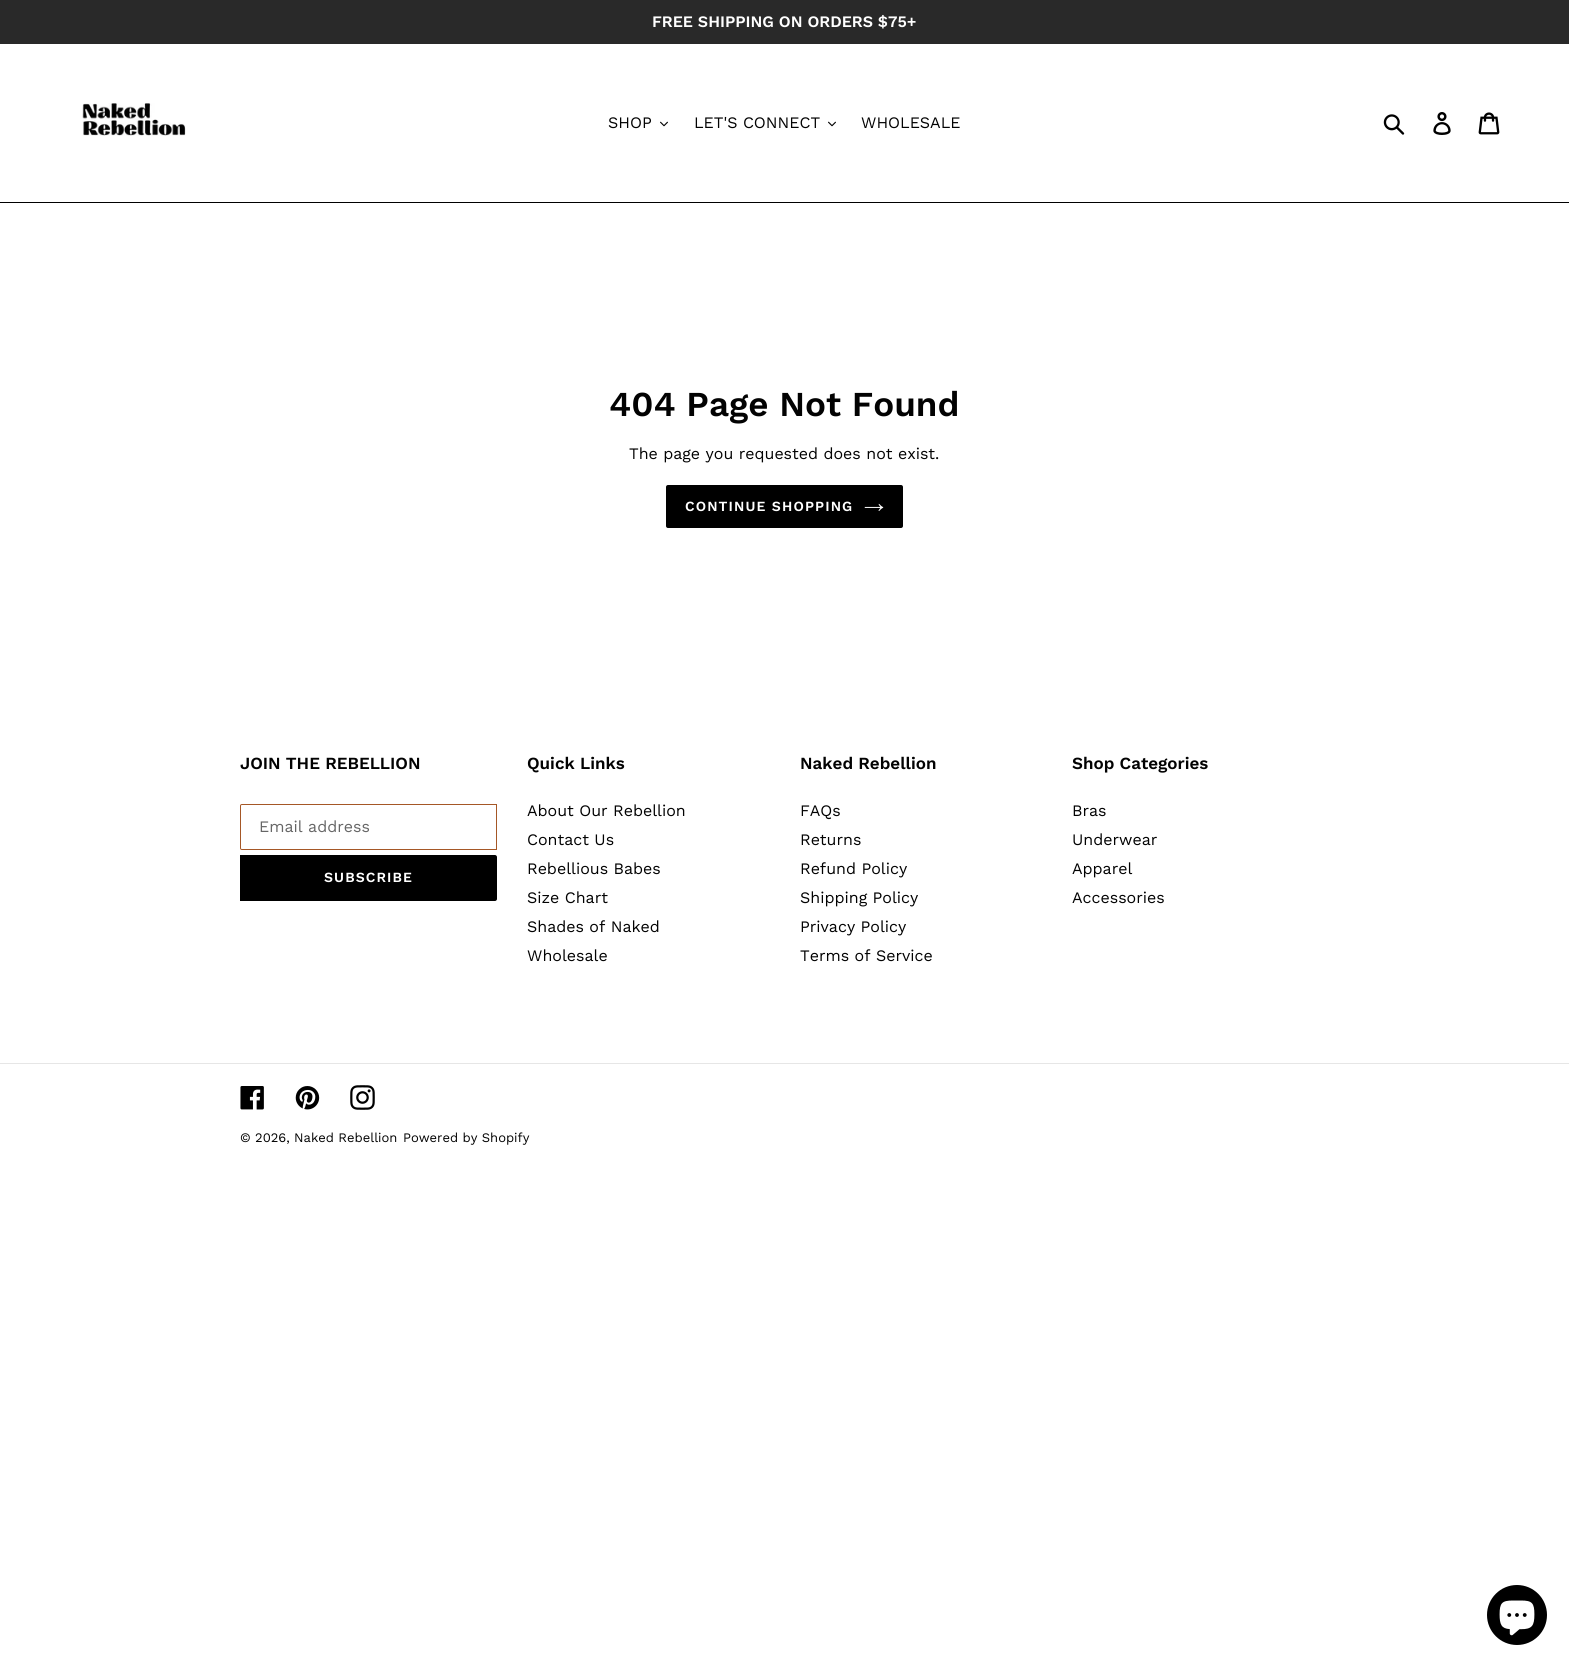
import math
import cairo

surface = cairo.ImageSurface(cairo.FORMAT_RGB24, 1569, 1666)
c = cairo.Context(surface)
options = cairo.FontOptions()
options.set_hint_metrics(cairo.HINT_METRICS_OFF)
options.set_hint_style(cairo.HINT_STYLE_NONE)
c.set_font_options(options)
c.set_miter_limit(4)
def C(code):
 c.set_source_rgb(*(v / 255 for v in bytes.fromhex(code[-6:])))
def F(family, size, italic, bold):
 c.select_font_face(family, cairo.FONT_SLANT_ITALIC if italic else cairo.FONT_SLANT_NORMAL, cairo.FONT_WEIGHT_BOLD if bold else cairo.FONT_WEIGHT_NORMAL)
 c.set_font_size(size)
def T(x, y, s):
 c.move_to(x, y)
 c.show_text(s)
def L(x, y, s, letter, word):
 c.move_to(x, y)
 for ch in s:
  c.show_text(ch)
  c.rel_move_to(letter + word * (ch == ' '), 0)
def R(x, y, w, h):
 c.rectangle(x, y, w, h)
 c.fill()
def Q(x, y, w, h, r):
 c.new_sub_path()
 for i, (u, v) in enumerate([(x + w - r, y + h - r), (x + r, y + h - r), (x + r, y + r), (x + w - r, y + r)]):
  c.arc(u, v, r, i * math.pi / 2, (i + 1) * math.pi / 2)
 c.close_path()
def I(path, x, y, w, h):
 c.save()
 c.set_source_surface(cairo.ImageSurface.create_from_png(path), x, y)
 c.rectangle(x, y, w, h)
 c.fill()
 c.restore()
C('ffffff')
c.paint()
C('292929')
R(0,0,1569,44)
F('Work Sans SemiBold',16,0,0)
C('ffffff')
T(652,27,'FREE SHIPPING ON ORDERS $75+')
C('000000')
R(0,202,1569,1)
I('1.png',82,103,104,33)
F('Work Sans',16,0,0)
C('020202')
T(608,128,'SHOP')
I('2.png',660,121,8,6)
T(694,128,'LET\'S CONNECT')
I('2.png',828,121,8,6)
T(861,128,'WHOLESALE')
I('3.png',1383,114,22,21)
I('4.png',1433,112,18,23)
I('5.png',1478,112,22,23)
F('Work Sans SemiBold',35,0,0)
T(609,416,'404 Page Not Found')
F('Work Sans',16,0,0)
T(629,459,'The page you requested does not exist.')
C('000000')
Q(666,485,237,43,2)
c.fill()
F('Work Sans SemiBold',14,0,0)
C('ffffff')
L(685,511,'CONTINUE SHOPPING',1.1,0)
I('6.png',864,503,20,8)
F('Work Sans SemiBold',17,0,0)
C('020202')
T(240,769,'JOIN THE REBELLION')
c.new_path()
c.move_to(242,804.5)
c.line_to(496.5,804.5)
c.line_to(496.5,849.5)
c.line_to(242,849.5)
c.curve_to(241,849.5,240.5,849,240.5,848)
c.line_to(240.5,806)
c.curve_to(240.5,805,241,804.5,242,804.5)
c.close_path()
C('a55726')
c.set_line_width(1)
c.stroke()
F('Work Sans',16,0,0)
C('666666')
T(259,832,'Email address')
C('000000')
c.new_path()
c.move_to(240,855)
c.line_to(495,855)
c.curve_to(496,855,497,856,497,857)
c.line_to(497,899)
c.curve_to(497,900,496,901,495,901)
c.line_to(240,901)
c.close_path()
c.fill()
F('Work Sans SemiBold',14,0,0)
C('ffffff')
L(324,882,'SUBSCRIBE',1.1,0)
F('Work Sans SemiBold',17,0,0)
C('020202')
T(527,769,'Quick Links')
F('Work Sans',16,0,0)
T(527,816,'About Our Rebellion')
T(527,845,'Contact Us')
T(527,874,'Rebellious Babes')
T(527,903,'Size Chart')
T(527,932,'Shades of Naked')
T(527,961,'Wholesale')
F('Work Sans SemiBold',17,0,0)
T(800,769,'Naked Rebellion')
F('Work Sans',16,0,0)
T(800,816,'FAQs')
T(800,845,'Returns')
T(800,874,'Refund Policy')
T(800,903,'Shipping Policy')
T(800,932,'Privacy Policy')
T(800,961,'Terms of Service')
F('Work Sans SemiBold',17,0,0)
T(1072,769,'Shop Categories')
F('Work Sans',16,0,0)
T(1072,816,'Bras')
T(1072,845,'Underwear')
T(1072,874,'Apparel')
T(1072,903,'Accessories')
C('e6e6e6')
R(0,1063,1569,1)
I('7.png',240,1086,24,24)
I('8.png',295,1086,25,24)
I('9.png',350,1085,25,25)
F('Work Sans',13,0,0)
C('020202')
T(240,1142,'© 2026,')
T(294,1142,'Naked Rebellion')
T(403,1142,'Powered by Shopify')
C('000000')
c.new_path()
c.arc(1517,1615,30,0,2 * math.pi)
c.fill()
I('10.png',1499,1600,36,36)
surface.write_to_png('o.png')
